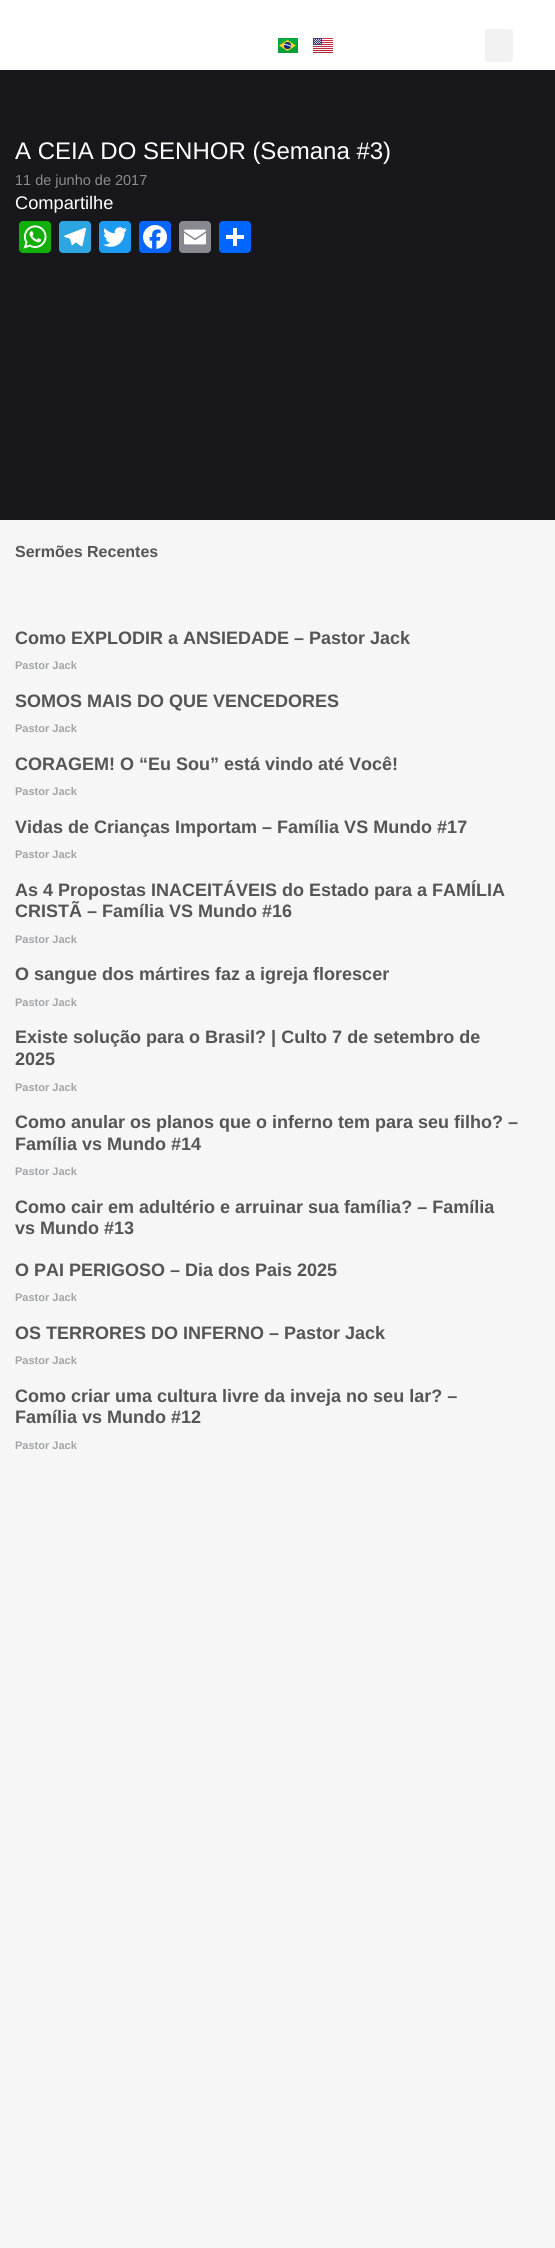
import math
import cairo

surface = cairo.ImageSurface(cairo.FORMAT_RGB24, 555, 2248)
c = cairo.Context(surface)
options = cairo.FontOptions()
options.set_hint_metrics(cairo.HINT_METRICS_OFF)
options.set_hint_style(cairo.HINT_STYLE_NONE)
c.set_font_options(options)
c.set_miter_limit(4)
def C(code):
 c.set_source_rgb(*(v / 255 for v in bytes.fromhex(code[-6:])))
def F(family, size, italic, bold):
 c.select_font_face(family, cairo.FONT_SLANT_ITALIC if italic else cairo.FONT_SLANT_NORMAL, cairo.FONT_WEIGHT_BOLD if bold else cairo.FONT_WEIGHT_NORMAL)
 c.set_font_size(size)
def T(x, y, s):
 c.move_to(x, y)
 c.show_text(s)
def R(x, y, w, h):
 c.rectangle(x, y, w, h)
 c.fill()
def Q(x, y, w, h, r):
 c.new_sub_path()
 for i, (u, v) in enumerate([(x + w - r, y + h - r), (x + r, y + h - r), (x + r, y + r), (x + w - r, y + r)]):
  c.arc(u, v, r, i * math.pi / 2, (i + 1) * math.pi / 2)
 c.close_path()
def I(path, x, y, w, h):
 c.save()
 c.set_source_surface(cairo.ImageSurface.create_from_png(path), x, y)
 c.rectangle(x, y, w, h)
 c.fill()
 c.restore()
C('f6f6f6')
c.paint()
C('ffffff')
R(0,0,555,70)
I('1.png',278,38,20,15)
I('2.png',313,38,20,15)
C('f2f2f2')
Q(485,29,28,33,3)
c.fill()
C('18181c')
R(0,70,555,450)
F('Liberation Sans',24,0,0)
C('ffffff')
T(15,159,'A CEIA DO SENHOR (Semana #3)')
F('Liberation Sans',14.5,0,0)
C('8c8c8e')
T(15,185,'11 de junho de 2017')
F('Liberation Sans',18.25,0,0)
C('ffffff')
T(15,209,'Compartilhe')
C('12af0a')
Q(19,221,32,32,4)
c.fill()
I('3.png',23,225,24,24)
C('2ca5e0')
Q(59,221,32,32,4)
c.fill()
I('4.png',64,227,22,20)
C('1d9bf0')
Q(99,221,32,32,4)
c.fill()
I('5.png',103,227,24,20)
C('0866ff')
Q(139,221,32,32,4)
c.fill()
I('6.png',143,225,24,24)
C('888990')
Q(179,221,32,32,4)
c.fill()
I('7.png',184,229,22,16)
C('0166ff')
Q(219,221,32,32,4)
c.fill()
C('ffffff')
R(233,228,4,18)
R(226,235,18,4)
F('Liberation Sans',16,0,1)
C('555556')
T(15,557,'Sermões Recentes')
F('Liberation Sans',18,0,1)
T(15,644,'Como EXPLODIR a ANSIEDADE – Pastor Jack')
F('Liberation Sans',11,0,1)
C('a3a4a6')
T(15,669,'Pastor Jack')
F('Liberation Sans',18,0,1)
C('555556')
T(15,707,'SOMOS MAIS DO QUE VENCEDORES')
F('Liberation Sans',11,0,1)
C('a3a4a6')
T(15,732,'Pastor Jack')
F('Liberation Sans',18,0,1)
C('555556')
T(15,770,'CORAGEM! O “Eu Sou” está vindo até Você!')
F('Liberation Sans',11,0,1)
C('a3a4a6')
T(15,795,'Pastor Jack')
F('Liberation Sans',18,0,1)
C('555556')
T(15,833,'Vidas de Crianças Importam – Família VS Mundo #17')
F('Liberation Sans',11,0,1)
C('a3a4a6')
T(15,858,'Pastor Jack')
F('Liberation Sans',18,0,1)
C('555556')
T(15,896,'As 4 Propostas INACEITÁVEIS do Estado para a FAMÍLIA')
T(15,917,'CRISTÃ – Família VS Mundo #16')
F('Liberation Sans',11,0,1)
C('a3a4a6')
T(15,943,'Pastor Jack')
F('Liberation Sans',18,0,1)
C('555556')
T(15,980,'O sangue dos mártires faz a igreja florescer')
F('Liberation Sans',11,0,1)
C('a3a4a6')
T(15,1006,'Pastor Jack')
F('Liberation Sans',18,0,1)
C('555556')
T(15,1043,'Existe solução para o Brasil? | Culto 7 de setembro de')
T(15,1065,'2025')
F('Liberation Sans',11,0,1)
C('a3a4a6')
T(15,1091,'Pastor Jack')
F('Liberation Sans',18,0,1)
C('555556')
T(15,1128,'Como anular os planos que o inferno tem para seu filho? –')
T(15,1150,'Família vs Mundo #14')
F('Liberation Sans',11,0,1)
C('a3a4a6')
T(15,1175,'Pastor Jack')
F('Liberation Sans',18,0,1)
C('555556')
T(15,1213,'Como cair em adultério e arruinar sua família? – Família')
T(15,1234,'vs Mundo #13')
T(15,1276,'O PAI PERIGOSO – Dia dos Pais 2025')
F('Liberation Sans',11,0,1)
C('a3a4a6')
T(15,1301,'Pastor Jack')
F('Liberation Sans',18,0,1)
C('555556')
T(15,1339,'OS TERRORES DO INFERNO – Pastor Jack')
F('Liberation Sans',11,0,1)
C('a3a4a6')
T(15,1364,'Pastor Jack')
F('Liberation Sans',18,0,1)
C('555556')
T(15,1402,'Como criar uma cultura livre da inveja no seu lar? –')
T(15,1423,'Família vs Mundo #12')
F('Liberation Sans',11,0,1)
C('a3a4a6')
T(15,1449,'Pastor Jack')
surface.write_to_png('o.png')
